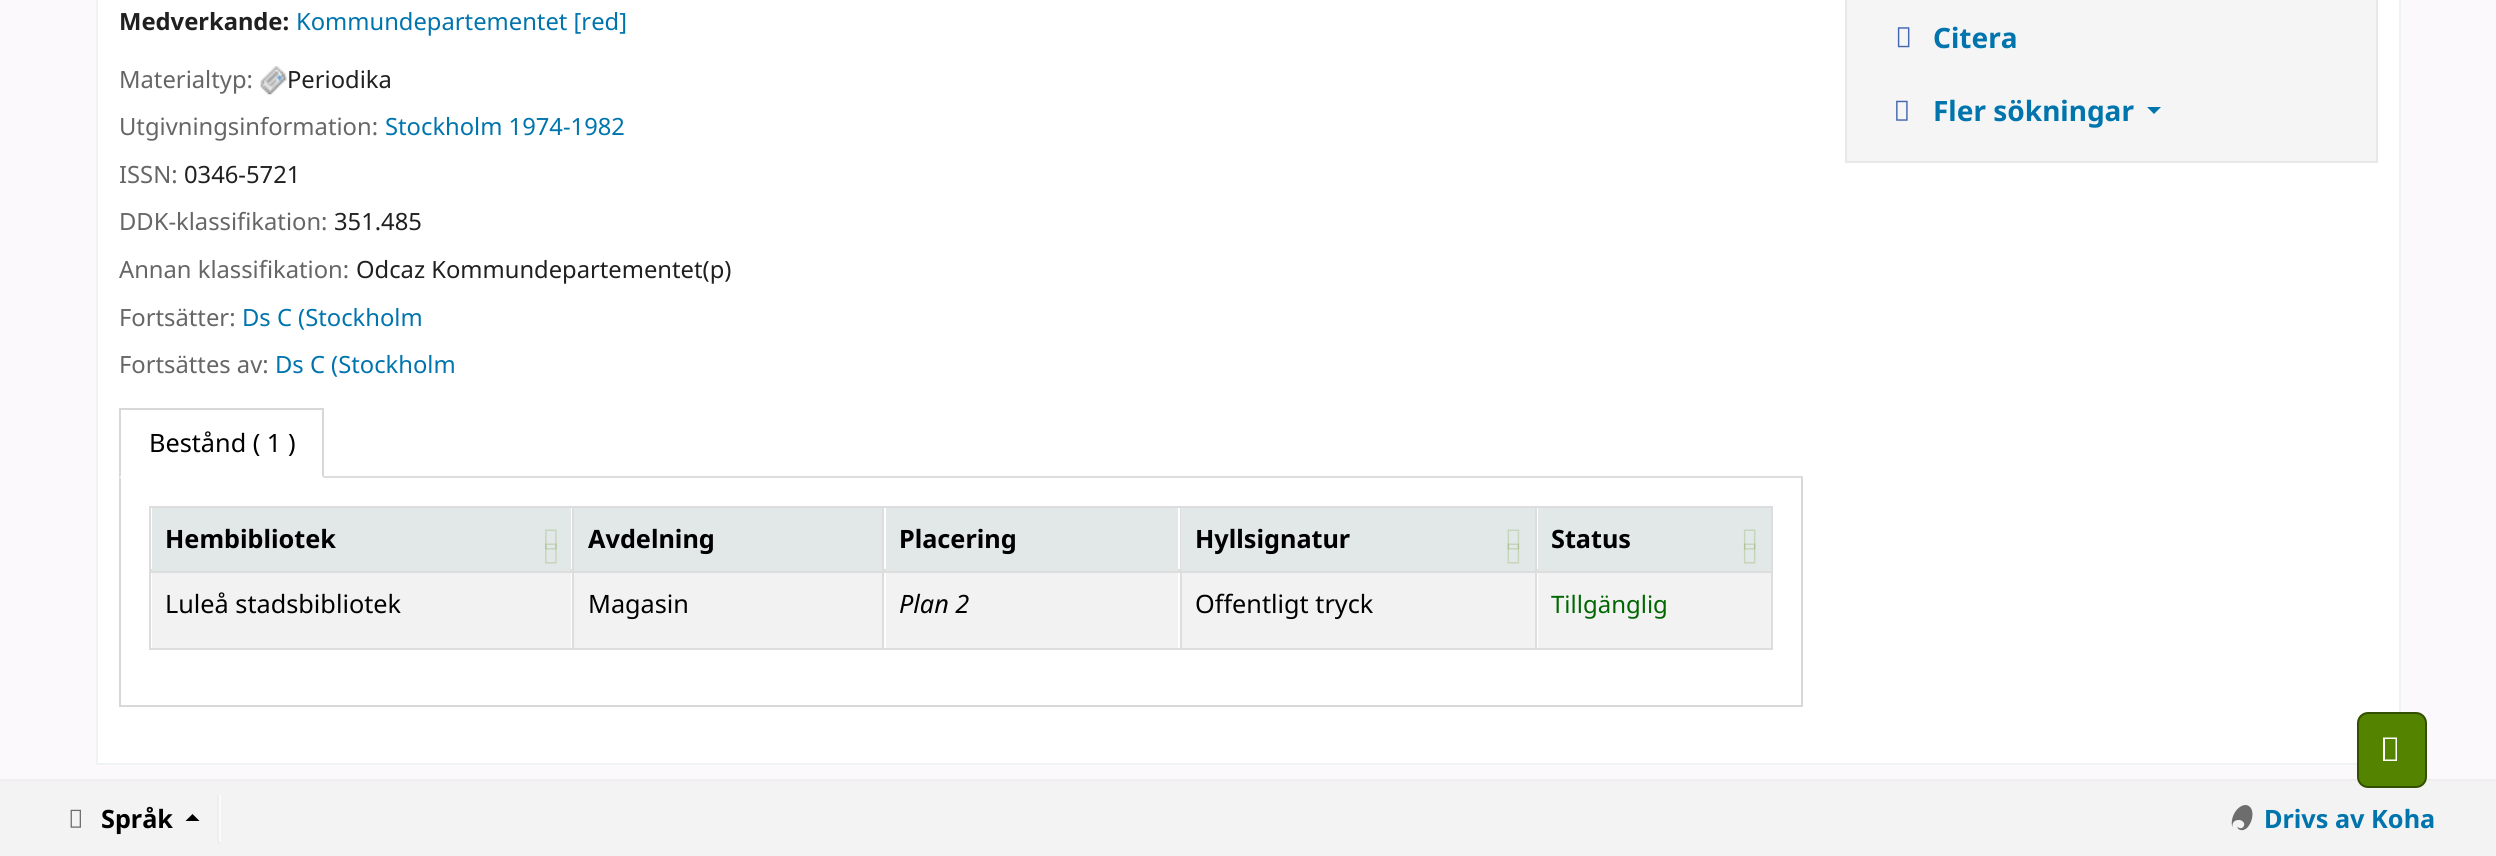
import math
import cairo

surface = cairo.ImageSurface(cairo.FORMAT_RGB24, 2496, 856)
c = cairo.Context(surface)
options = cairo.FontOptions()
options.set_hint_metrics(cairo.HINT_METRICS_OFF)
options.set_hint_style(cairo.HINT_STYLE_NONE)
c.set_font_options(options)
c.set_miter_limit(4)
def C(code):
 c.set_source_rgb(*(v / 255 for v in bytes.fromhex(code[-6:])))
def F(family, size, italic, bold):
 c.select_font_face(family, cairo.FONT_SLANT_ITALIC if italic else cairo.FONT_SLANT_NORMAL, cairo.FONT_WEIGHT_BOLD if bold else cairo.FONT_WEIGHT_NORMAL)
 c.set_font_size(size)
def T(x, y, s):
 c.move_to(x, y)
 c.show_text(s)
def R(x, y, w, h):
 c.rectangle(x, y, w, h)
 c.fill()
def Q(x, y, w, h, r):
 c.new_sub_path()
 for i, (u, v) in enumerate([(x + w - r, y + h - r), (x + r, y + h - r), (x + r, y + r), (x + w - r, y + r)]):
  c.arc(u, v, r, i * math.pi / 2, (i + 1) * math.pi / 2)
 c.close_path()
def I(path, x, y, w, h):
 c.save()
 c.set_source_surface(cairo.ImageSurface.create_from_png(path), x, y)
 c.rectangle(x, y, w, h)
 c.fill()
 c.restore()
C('fcf9fc')
c.paint()
C('ffffff')
c.rectangle(97,-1,2303,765)
c.fill_preserve()
C('f0f3f3')
c.stroke()
F('Noto Sans',23.75,0,1)
C('202020')
T(119,30,'Medverkande:')
F('Noto Sans',23.75,0,0)
C('0074ad')
T(296,30,'Kommundepartementet [red]')
C('666666')
T(119,88,'Materialtyp:')
I('1.png',260,66,27,29)
C('202020')
T(287,88,'Periodika')
C('666666')
T(119,135,'Utgivningsinformation:')
C('0074ad')
T(385,135,'Stockholm 1974-1982')
C('666666')
T(119,183,'ISSN:')
C('202020')
T(184,183,'0346-5721')
C('666666')
T(119,230,'DDK-klassifikation:')
C('202020')
T(334,230,'351.485')
C('666666')
T(119,278,'Annan klassifikation:')
C('202020')
T(356,278,'Odcaz Kommundepartementet(p)')
C('666666')
T(119,326,'Fortsätter:')
C('0074ad')
T(242,326,'Ds C (Stockholm')
C('666666')
T(119,373,'Fortsättes av:')
C('0074ad')
T(275,373,'Ds C (Stockholm')
C('dddddd')
R(324,476,1479,2)
C('d8d8d8')
R(119,408,205,2)
c.new_path()
c.move_to(324,408)
c.line_to(324,478)
c.line_to(322,476)
c.line_to(322,410)
c.close_path()
c.fill()
c.new_path()
c.move_to(119,478)
c.line_to(119,408)
c.line_to(121,410)
c.line_to(121,476)
c.close_path()
c.fill()
F('Noto Sans',25.25,0,0)
C('000000')
T(149,452,'Bestånd ( 1 )')
C('d8d8d8')
R(1801,478,2,229)
R(119,705,1684,2)
R(119,478,2,229)
C('dddddd')
R(149,506,1624,2)
R(149,569,1389,2)
C('e2e8e8')
R(152,508,419,63)
F('Noto Sans',25.25,0,1)
C('000000')
T(165,548,'Hembibliotek')
I('2.png',545,529,12,21)
I('3.png',545,543,12,21)
C('e2e8e8')
R(574,508,308,63)
C('000000')
T(588,548,'Avdelning')
C('e2e8e8')
R(886,508,292,63)
C('000000')
T(899,548,'Placering')
C('dddddd')
R(149,571,1624,2)
R(149,648,1624,2)
R(1180,506,2,143)
C('e2e8e8')
R(1181,508,354,63)
C('000000')
T(1195,548,'Hyllsignatur')
I('4.png',1507,529,13,21)
I('5.png',1507,543,13,21)
C('e2e8e8')
R(1538,508,233,63)
C('000000')
T(1551,548,'Status')
I('6.png',1743,529,13,21)
I('7.png',1743,543,13,21)
C('f2f2f2')
R(152,573,419,75)
C('dddddd')
R(149,506,2,143)
F('Noto Sans',25.25,0,0)
C('000000')
T(165,613,'Luleå stadsbibliotek')
C('f2f2f2')
R(574,573,308,75)
C('dddddd')
R(572,506,2,143)
C('000000')
T(588,613,'Magasin')
C('f2f2f2')
R(886,573,292,75)
C('dddddd')
R(882,506,2,143)
F('Noto Sans',25.25,1,0)
C('000000')
T(899,613,'Plan 2')
C('f2f2f2')
R(1182,573,353,75)
F('Noto Sans',25.25,0,0)
C('000000')
T(1195,613,'Offentligt tryck')
C('f2f2f2')
R(1538,573,233,75)
C('dddddd')
R(1771,506,2,143)
R(1535,506,2,143)
F('Noto Sans',24,0,0)
C('006600')
T(1551,613,'Tillgänglig')
C('f5f5f5')
c.rectangle(1846,-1,531,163)
c.fill_preserve()
C('e8e8e8')
c.stroke()
I('8.png',1897,27,13,21)
F('Noto Sans',28,0,1)
C('0074ad')
T(1933,48,'Citera')
I('9.png',1896,100,12,21)
T(1933,121,'Fler sökningar')
c.new_path()
c.move_to(2147,107)
c.line_to(2161,107)
c.line_to(2154,114)
c.close_path()
c.fill()
C('f3f3f3')
R(0,781,2496,75)
C('eeeeee')
R(0,779,2496,2)
C('548300')
Q(2358,713,68,74,10)
c.fill_preserve()
C('335000')
c.stroke()
C('ffffff')
c.new_path()
c.move_to(2383,761)
c.line_to(2383,737.5)
c.line_to(2397,737.5)
c.line_to(2397,761)
c.close_path()
c.move_to(2385,759.5)
c.line_to(2395.5,759.5)
c.line_to(2395.5,739)
c.line_to(2385,739)
c.close_path()
c.fill()
I('10.png',70,809,11,19)
F('Noto Sans',25.25,0,1)
C('000000')
T(101,828,'Språk')
c.new_path()
c.move_to(199.5,821)
c.line_to(185.5,821)
c.line_to(192.5,814)
c.close_path()
c.fill()
C('fcf9fc')
R(219,795,2,49)
C('eeeeee')
R(217,842,4,2)
R(217,795,2,49)
I('11.png',2231,805,22,26)
C('0074ad')
T(2264,828,'Drivs av Koha')
surface.write_to_png('o.png')
